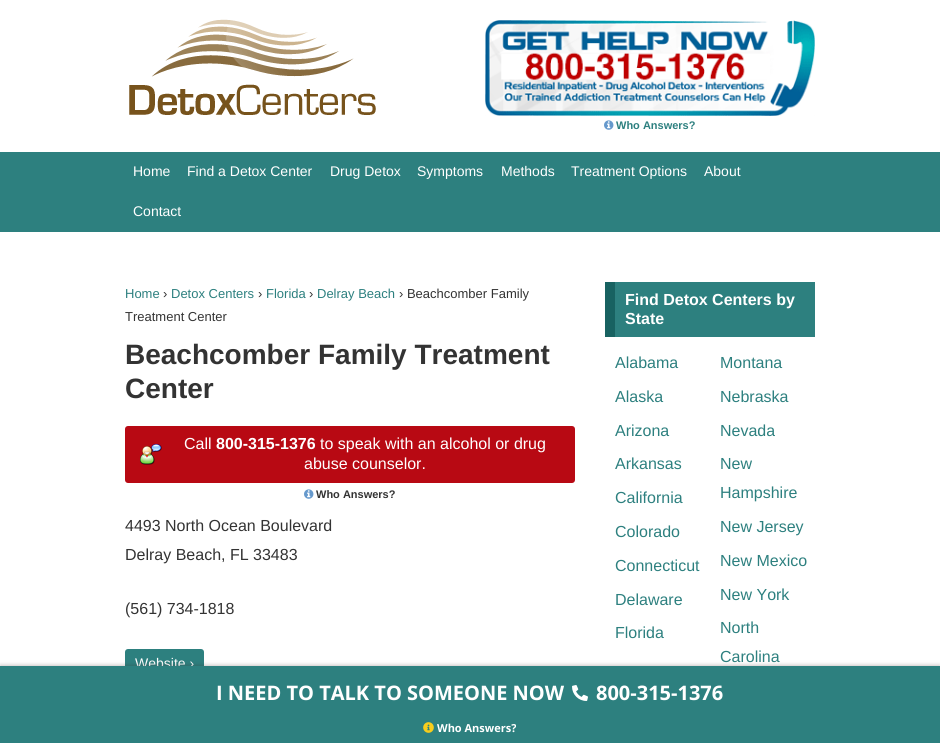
import math
import cairo

surface = cairo.ImageSurface(cairo.FORMAT_RGB24, 940, 743)
c = cairo.Context(surface)
options = cairo.FontOptions()
options.set_hint_metrics(cairo.HINT_METRICS_OFF)
options.set_hint_style(cairo.HINT_STYLE_NONE)
c.set_font_options(options)
c.set_miter_limit(4)
def C(code):
 c.set_source_rgb(*(v / 255 for v in bytes.fromhex(code[-6:])))
def F(family, size, italic, bold):
 c.select_font_face(family, cairo.FONT_SLANT_ITALIC if italic else cairo.FONT_SLANT_NORMAL, cairo.FONT_WEIGHT_BOLD if bold else cairo.FONT_WEIGHT_NORMAL)
 c.set_font_size(size)
def T(x, y, s):
 c.move_to(x, y)
 c.show_text(s)
def R(x, y, w, h):
 c.rectangle(x, y, w, h)
 c.fill()
def Q(x, y, w, h, r):
 c.new_sub_path()
 for i, (u, v) in enumerate([(x + w - r, y + h - r), (x + r, y + h - r), (x + r, y + r), (x + w - r, y + r)]):
  c.arc(u, v, r, i * math.pi / 2, (i + 1) * math.pi / 2)
 c.close_path()
def S(x, y, w, h, r, blur, alpha):
 c.push_group_with_content(cairo.CONTENT_ALPHA)
 c.set_operator(cairo.OPERATOR_SOURCE)
 for i in range(15, -16, -2):
  e = blur * i / 6
  if min(w, h) + 2 * e > 0:
   c.set_source_rgba(0, 0, 0, alpha * math.erfc((i - 1) / 8.5) / 2)
   Q(x - e, y - e, w + 2 * e, h + 2 * e, max(0, min(r + e + blur * .6, min(w, h) / 2 + e)))
   c.fill()
 c.mask(c.pop_group())
def I(path, x, y, w, h):
 c.save()
 c.set_source_surface(cairo.ImageSurface.create_from_png(path), x, y)
 c.rectangle(x, y, w, h)
 c.fill()
 c.restore()
C('ffffff')
c.paint()
I('1.png',129,19,247,96)
I('2.png',485,20,330,96)
I('3.png',604,120,10,10)
F('Liberation Sans',11,0,1)
C('2d807f')
T(616,129,'Who Answers?')
R(0,152,940,80)
F('Liberation Sans',14,0,0)
C('ffffff')
T(133,176,'Home')
T(187,176,'Find a Detox Center')
T(330,176,'Drug Detox')
T(417,176,'Symptoms')
T(501,176,'Methods')
T(571,176,'Treatment Options')
T(704,176,'About')
T(133,216,'Contact')
F('Liberation Sans',13,0,0)
C('2d807f')
T(125,298,'Home')
C('333333')
T(163,298,'›')
C('2d807f')
T(171,298,'Detox Centers')
C('333333')
T(258,298,'›')
C('2d807f')
T(266,298,'Florida')
C('333333')
T(309,298,'›')
C('2d807f')
T(317,298,'Delray Beach')
C('333333')
T(399,298,'› Beachcomber Family')
T(125,321,'Treatment Center')
F('Liberation Sans',28,0,1)
T(125,364,'Beachcomber Family Treatment')
T(125,398,'Center')
C('b80913')
Q(125,426,450,57,3)
c.fill()
I('4.png',140,444,22,21)
F('Liberation Sans',16,0,0)
C('ffffff')
T(184,449,'Call')
F('Liberation Sans',16,0,1)
T(216,449,'800-315-1376')
F('Liberation Sans',16,0,0)
T(320,449,'to speak with an alcohol or drug')
T(304,469,'abuse counselor.')
I('3.png',304,489,10,10)
F('Liberation Sans',11,0,1)
C('333333')
T(316,498,'Who Answers?')
F('Liberation Sans',16,0,0)
T(125,531,'4493 North Ocean Boulevard')
T(125,560,'Delray Beach, FL 33483')
T(125,614,'(561) 734-1818')
C('2d807f')
Q(125,649,79,31,3)
c.fill()
F('Liberation Sans',14,0,0)
C('ffffff')
T(135,668,'Website ›')
C('2d807f')
R(615,282,200,55)
C('186261')
R(605,282,10,55)
F('Liberation Sans',16,0,1)
C('ffffff')
T(625,305,'Find Detox Centers by')
T(625,324,'State')
F('Liberation Sans',16,0,0)
C('2d807f')
T(615,368,'Alabama')
T(615,402,'Alaska')
T(615,436,'Arizona')
T(615,469,'Arkansas')
T(615,503,'California')
T(615,537,'Colorado')
T(615,571,'Connecticut')
T(615,605,'Delaware')
T(615,638,'Florida')
T(720,368,'Montana')
T(720,402,'Nebraska')
T(720,436,'Nevada')
T(720,469,'New')
T(720,498,'Hampshire')
T(720,532,'New Jersey')
T(720,566,'New Mexico')
T(720,600,'New York')
T(720,633,'North')
T(720,662,'Carolina')
C('3b2727')
S(0,666,940,77,0,2.5,.4)
C('2d807f')
R(0,666,940,77)
F('Open Sans',20,0,1)
C('ffffff')
T(216,700,'I NEED TO TALK TO SOMEONE NOW')
I('5.png',572,685,16,16)
T(596,700,'800-315-1376')
I('6.png',423,722,11,11)
F('Open Sans',11,0,1)
T(437,732,'Who Answers?')
surface.write_to_png('o.png')
